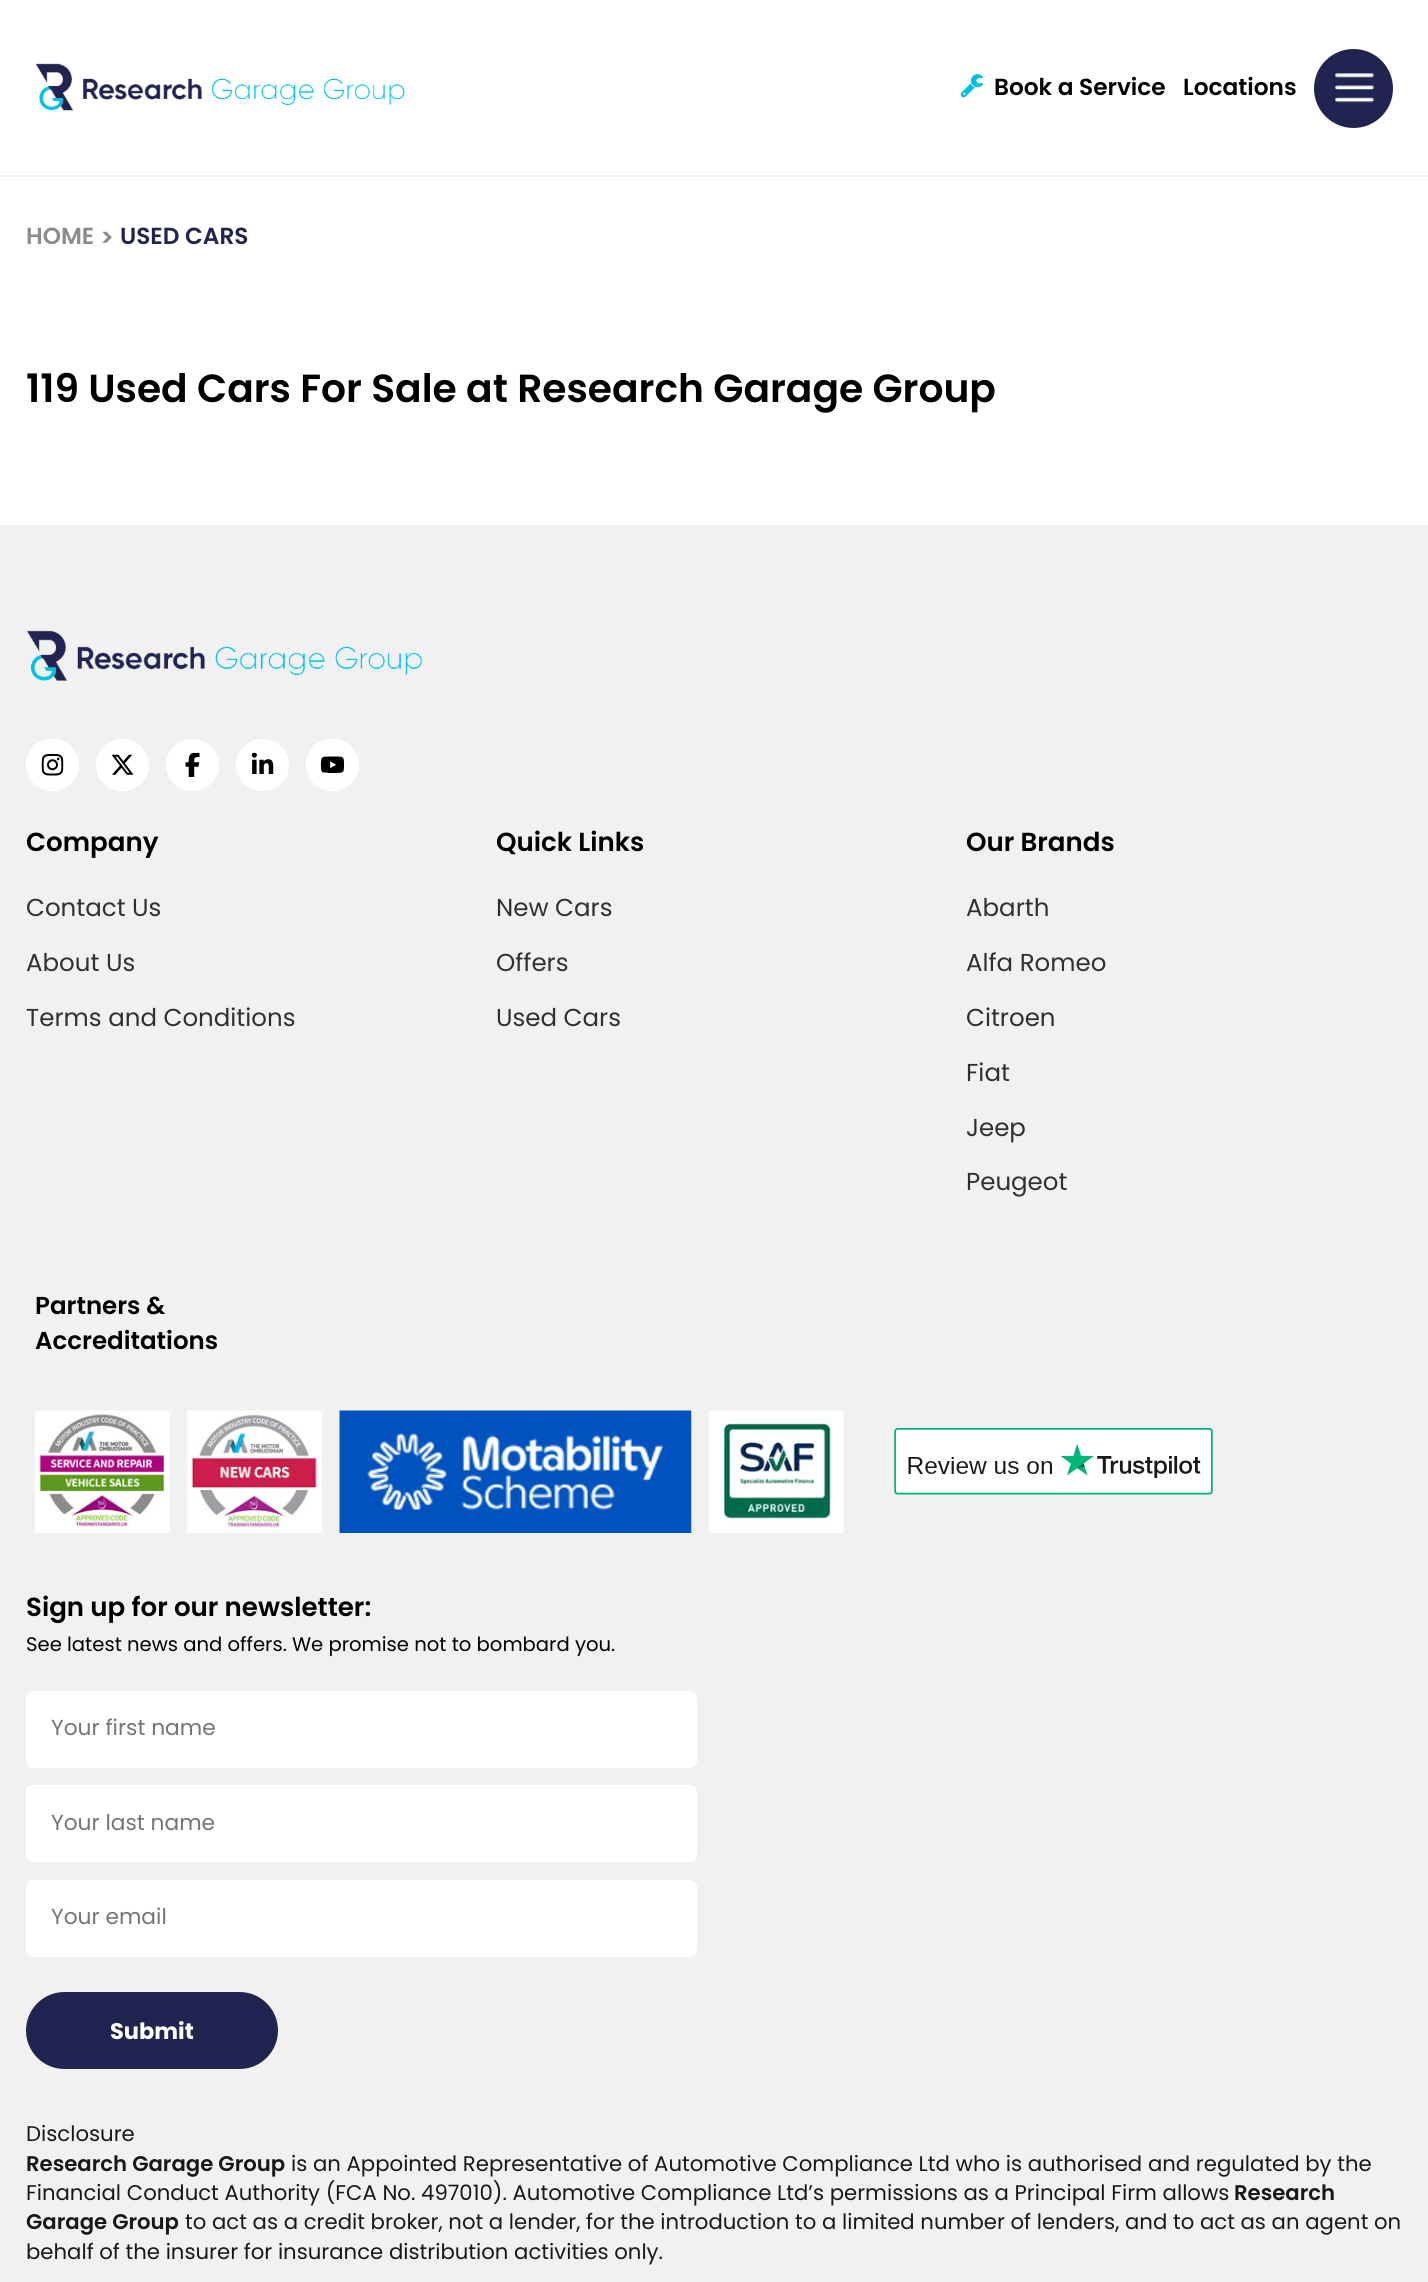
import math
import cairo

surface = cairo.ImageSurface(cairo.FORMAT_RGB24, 1428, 2282)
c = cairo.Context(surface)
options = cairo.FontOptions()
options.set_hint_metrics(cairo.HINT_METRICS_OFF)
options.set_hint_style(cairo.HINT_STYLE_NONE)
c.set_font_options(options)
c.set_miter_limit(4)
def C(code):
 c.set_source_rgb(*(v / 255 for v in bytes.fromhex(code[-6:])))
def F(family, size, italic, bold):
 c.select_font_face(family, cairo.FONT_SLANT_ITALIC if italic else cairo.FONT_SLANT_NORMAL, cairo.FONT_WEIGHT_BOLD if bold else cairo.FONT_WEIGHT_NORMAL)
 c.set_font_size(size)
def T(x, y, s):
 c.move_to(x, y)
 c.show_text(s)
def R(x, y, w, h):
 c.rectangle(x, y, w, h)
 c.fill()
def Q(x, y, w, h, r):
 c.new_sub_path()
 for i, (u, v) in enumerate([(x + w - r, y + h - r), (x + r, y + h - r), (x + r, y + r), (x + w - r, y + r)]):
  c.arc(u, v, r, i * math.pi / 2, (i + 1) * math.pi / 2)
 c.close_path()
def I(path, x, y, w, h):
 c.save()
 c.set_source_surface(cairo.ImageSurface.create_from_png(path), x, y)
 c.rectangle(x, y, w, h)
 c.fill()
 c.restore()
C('ffffff')
c.paint()
C('f2f2f2')
R(0,175,1428,2)
I('1.png',35,63,370,48)
I('2.png',960,74,24,24)
F('Poppins SemiBold',23.25,0,0)
C('000000')
T(994,95,'Book a Service')
T(1183,95,'Locations')
C('212451')
c.new_path()
c.arc(1353.5,88.5,39.5,0,2 * math.pi)
c.fill()
I('3.png',1335,73,40,30)
C('8c8c8c')
T(26,244,'HOME')
F('Poppins SemiBold',24.5,0,0)
T(100,246,'>')
F('Poppins SemiBold',23.25,0,0)
C('212451')
T(120,244,'USED CARS')
F('Poppins SemiBold',39.2,0,0)
C('000000')
T(26,402,'119 Used Cars For Sale at Research Garage Group')
C('f1f1f1')
R(0,525,1428,1757)
I('4.png',27,630,395,51)
C('ffffff')
Q(26,739,53,52,26)
c.fill()
I('5.png',41,754,23,22)
Q(96,739,53,52,26)
c.fill()
I('6.png',111,754,23,21)
Q(166,739,53,52,26)
c.fill()
I('7.png',185,752,15,25)
Q(236,739,53,52,26)
c.fill()
I('8.png',251,752,23,22)
Q(306,739,53,52,26)
c.fill()
I('9.png',320,756,25,17)
F('Poppins SemiBold',26.1,0,0)
C('000000')
T(26,851,'Company')
F('Poppins',24.5,0,0)
C('303030')
T(26,916,'Contact Us')
T(26,971,'About Us')
T(26,1026,'Terms and Conditions')
F('Poppins SemiBold',26.1,0,0)
C('000000')
T(496,851,'Quick Links')
F('Poppins',24.5,0,0)
C('303030')
T(496,916,'New Cars')
T(496,971,'Offers')
T(496,1026,'Used Cars')
F('Poppins SemiBold',26.1,0,0)
C('000000')
T(966,851,'Our Brands')
F('Poppins',24.5,0,0)
C('303030')
T(966,916,'Abarth')
T(966,971,'Alfa Romeo')
T(966,1026,'Citroen')
T(966,1081,'Fiat')
T(966,1136,'Jeep')
T(966,1190,'Peugeot')
F('Poppins SemiBold',24.5,0,0)
C('000000')
T(35,1314,'Partners &')
T(35,1349,'Accreditations')
I('10.png',35,1410,135,123)
I('11.png',187,1410,135,123)
I('12.png',339,1410,353,123)
I('13.png',709,1410,135,123)
I('14.png',894,1428,319,67)
F('Poppins SemiBold',26.1,0,0)
T(26,1616,'Sign up for our newsletter:')
F('Poppins',19.6,0,0)
T(26,1651,'See latest news and offers. We promise not to bombard you.')
C('ffffff')
Q(26,1691,671,77,7)
c.fill()
F('Poppins',21.75,0,0)
C('757575')
T(51,1735,'Your first name')
C('ffffff')
Q(26,1785,671,77,7)
c.fill()
C('757575')
T(51,1830,'Your last name')
C('ffffff')
Q(26,1880,671,77,7)
c.fill()
C('757575')
T(51,1924,'Your email')
C('212451')
Q(26,1992,252,77,38.5)
c.fill()
F('Poppins',22.5,0,1)
C('ffffff')
T(110,2039,'Submit')
F('Poppins',21.22,0,0)
C('181818')
T(26,2141,'Disclosure')
F('Poppins SemiBold',21.22,0,0)
T(26,2171,'Research Garage Group')
F('Poppins',21.22,0,0)
T(291,2171,'is an Appointed Representative of Automotive Compliance Ltd who is authorised and regulated by the')
T(26,2200,'Financial Conduct Authority (FCA No. 497010). Automotive Compliance Ltd’s permissions as a Principal Firm allows')
F('Poppins SemiBold',21.22,0,0)
T(1234,2200,'Research')
T(26,2229,'Garage Group')
F('Poppins',21.22,0,0)
T(185,2229,'to act as a credit broker, not a lender, for the introduction to a limited number of lenders, and to act as an agent on')
T(26,2259,'behalf of the insurer for insurance distribution activities only.')
surface.write_to_png('o.png')
